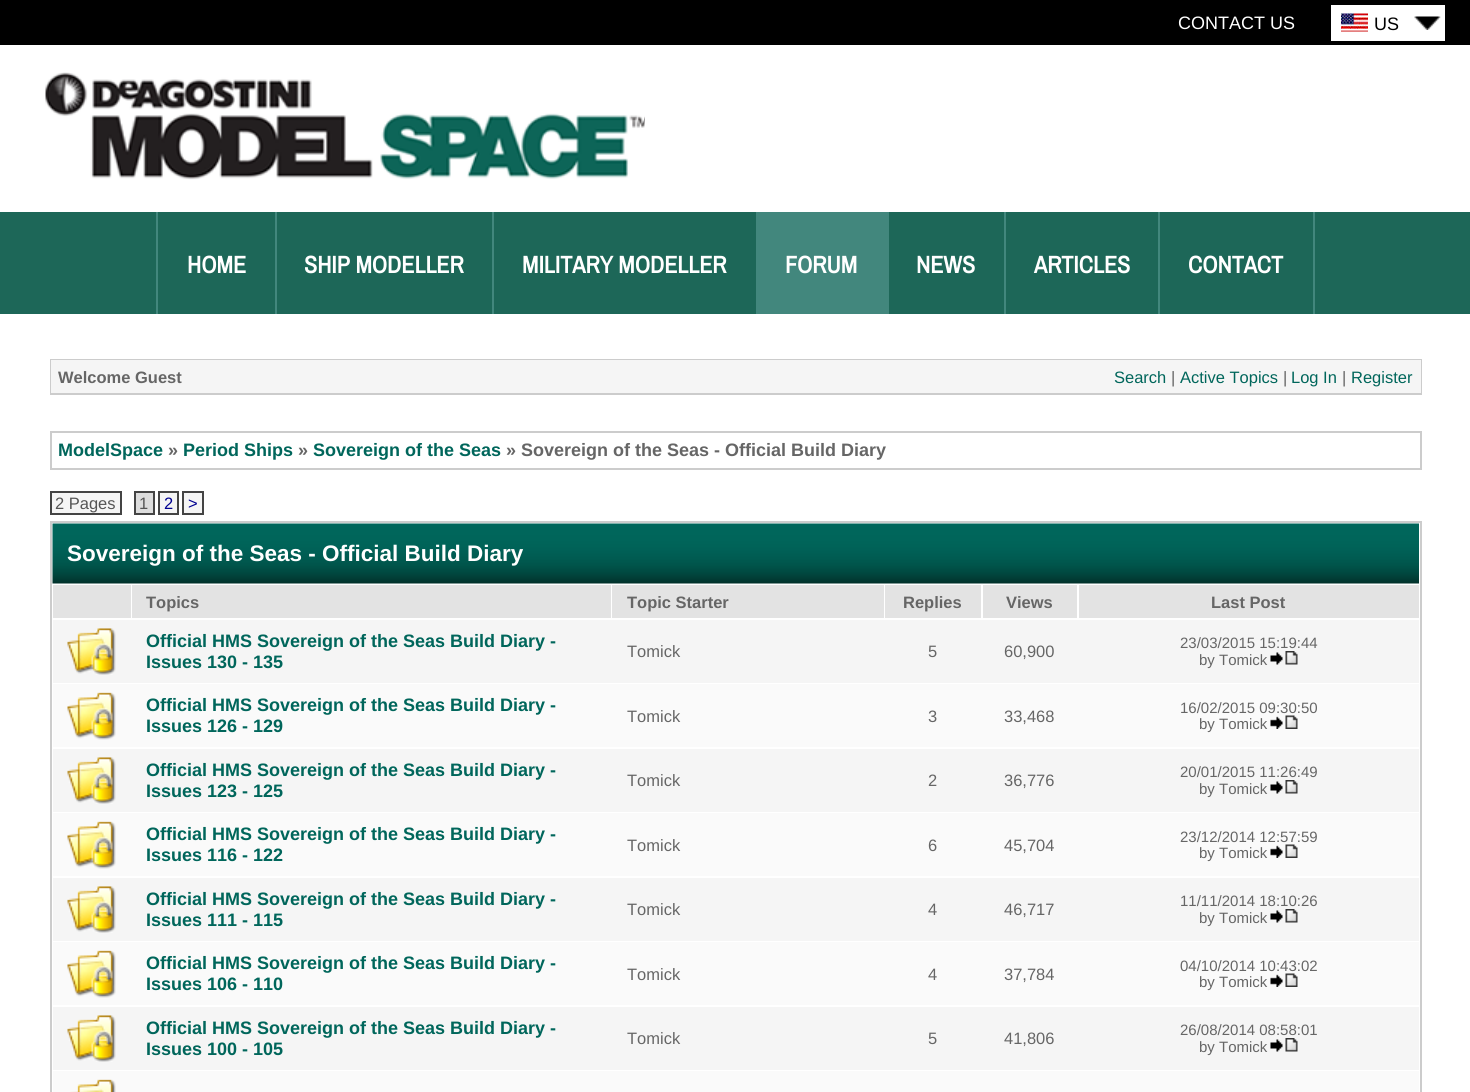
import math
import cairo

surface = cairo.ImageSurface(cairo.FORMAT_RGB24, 1470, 1092)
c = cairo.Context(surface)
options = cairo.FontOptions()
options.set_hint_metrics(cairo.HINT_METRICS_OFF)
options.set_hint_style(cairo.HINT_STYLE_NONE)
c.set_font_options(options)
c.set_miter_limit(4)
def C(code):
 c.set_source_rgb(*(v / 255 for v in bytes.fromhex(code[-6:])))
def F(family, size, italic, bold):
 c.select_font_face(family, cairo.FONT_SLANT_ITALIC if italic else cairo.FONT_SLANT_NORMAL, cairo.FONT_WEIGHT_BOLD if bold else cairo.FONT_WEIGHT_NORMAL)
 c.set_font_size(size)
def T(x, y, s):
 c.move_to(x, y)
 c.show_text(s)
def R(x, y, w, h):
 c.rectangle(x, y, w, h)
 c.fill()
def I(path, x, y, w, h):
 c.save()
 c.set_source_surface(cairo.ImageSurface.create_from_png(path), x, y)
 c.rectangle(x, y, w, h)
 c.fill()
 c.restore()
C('ffffff')
c.paint()
C('000000')
R(0,0,1470,45)
F('Liberation Sans',18,0,0)
C('ffffff')
T(1178,29,'CONTACT US')
R(1331,5,114,36)
I('1.png',1414,16,27,14)
I('2.png',1341,13,27,19)
C('000000')
T(1374,30,'US')
I('3.png',45,72,600,108)
C('1d6758')
R(0,212,1470,102)
C('42877d')
R(156,212,2,102)
R(275,212,2,102)
F('Archivo Narrow',24,0,1)
C('ffffff')
T(187,273,'HOME')
C('42877d')
R(492,212,2,102)
C('ffffff')
T(304,273,'SHIP MODELLER')
C('42877d')
R(756,212,2,102)
C('ffffff')
T(522,273,'MILITARY MODELLER')
C('42877d')
R(758,212,131,102)
C('ffffff')
T(785,273,'FORUM')
C('42877d')
R(1004,212,2,102)
C('ffffff')
T(916,273,'NEWS')
C('42877d')
R(1158,212,2,102)
C('ffffff')
T(1034,273,'ARTICLES')
C('42877d')
R(1313,212,2,102)
C('ffffff')
T(1188,273,'CONTACT')
c.rectangle(51,360,1370,34)
C('cccccc')
c.stroke()
C('f5f5f5')
R(51,360,1370,33)
F('Liberation Sans',16.5,0,1)
C('666666')
T(58,383,'Welcome Guest')
F('Liberation Sans',16.5,0,0)
C('00665b')
T(1114,383,'Search')
C('666666')
T(1171,383,'|')
C('00665b')
T(1180,383,'Active Topics')
C('666666')
T(1283,383,'|')
C('00665b')
T(1291,383,'Log In')
C('666666')
T(1342,383,'|')
C('00665b')
T(1351,383,'Register')
c.rectangle(51,432,1370,37)
C('cccccc')
c.stroke()
F('Liberation Sans',18,0,1)
C('00665b')
T(58,456,'ModelSpace')
C('666666')
T(168,456,'»')
C('00665b')
T(183,456,'Period Ships')
C('666666')
T(298,456,'»')
C('00665b')
T(313,456,'Sovereign of the Seas')
C('666666')
T(506,456,'» Sovereign of the Seas - Official Build Diary')
C('f5f5f5')
c.rectangle(51,492,70,22)
c.fill_preserve()
C('444444')
c.stroke()
F('Liberation Sans',16.5,0,0)
C('555555')
T(55,509,'2 Pages')
C('dddddd')
c.rectangle(135,492,19,22)
c.fill_preserve()
C('444444')
c.stroke()
C('555555')
T(139,509,'1')
C('f5f5f5')
c.rectangle(159,492,19,22)
c.fill_preserve()
C('444444')
c.stroke()
C('000090')
T(164,509,'2')
C('f5f5f5')
c.rectangle(183,492,20,22)
c.fill_preserve()
C('444444')
c.stroke()
C('000090')
T(188,509,'>')
c.rectangle(51,522,1370,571)
C('cccccc')
c.stroke()
I('4.png',52,523,1367,61)
F('Liberation Sans',22.5,0,1)
C('ffffff')
T(67,561,'Sovereign of the Seas - Official Build Diary')
C('e3e3e3')
R(53,585,78,33)
R(132,585,479,33)
F('Liberation Sans',16.5,0,1)
C('666666')
T(146,608,'Topics')
C('e3e3e3')
R(612,585,272,33)
C('666666')
T(627,608,'Topic Starter')
C('e3e3e3')
R(885,585,96,33)
C('666666')
T(903,608,'Replies')
C('e3e3e3')
R(983,585,94,33)
C('666666')
T(1006,608,'Views')
C('e3e3e3')
R(1079,585,340,33)
C('666666')
T(1211,608,'Last Post')
C('f5f5f5')
R(53,620,1366,63)
I('5.png',67,628,49,47)
F('Liberation Sans',18,0,1)
C('00665b')
T(146,647,'Official HMS Sovereign of the Seas Build Diary -')
T(146,668,'Issues 130 - 135')
F('Liberation Sans',16.5,0,0)
C('666666')
T(627,657,'Tomick')
T(928,657,'5')
T(1004,657,'60,900')
F('Liberation Sans',15,0,0)
T(1180,648,'23/03/2015 15:19:44')
T(1199,665,'by Tomick')
I('6.png',1270,651,28,14)
C('fafafa')
R(53,684,1366,63)
I('7.png',67,692,49,48)
F('Liberation Sans',18,0,1)
C('00665b')
T(146,711,'Official HMS Sovereign of the Seas Build Diary -')
T(146,732,'Issues 126 - 129')
F('Liberation Sans',16.5,0,0)
C('666666')
T(627,722,'Tomick')
T(928,722,'3')
T(1004,722,'33,468')
F('Liberation Sans',15,0,0)
T(1180,713,'16/02/2015 09:30:50')
T(1199,729,'by Tomick')
I('8.png',1270,715,28,14)
C('f5f5f5')
R(53,749,1366,63)
I('5.png',67,757,49,47)
F('Liberation Sans',18,0,1)
C('00665b')
T(146,776,'Official HMS Sovereign of the Seas Build Diary -')
T(146,797,'Issues 123 - 125')
F('Liberation Sans',16.5,0,0)
C('666666')
T(627,786,'Tomick')
T(928,786,'2')
T(1004,786,'36,776')
F('Liberation Sans',15,0,0)
T(1180,777,'20/01/2015 11:26:49')
T(1199,794,'by Tomick')
I('6.png',1270,780,28,14)
C('fafafa')
R(53,813,1366,63)
I('7.png',67,821,49,48)
F('Liberation Sans',18,0,1)
C('00665b')
T(146,840,'Official HMS Sovereign of the Seas Build Diary -')
T(146,861,'Issues 116 - 122')
F('Liberation Sans',16.5,0,0)
C('666666')
T(627,851,'Tomick')
T(928,851,'6')
T(1004,851,'45,704')
F('Liberation Sans',15,0,0)
T(1180,842,'23/12/2014 12:57:59')
T(1199,858,'by Tomick')
I('8.png',1270,844,28,14)
C('f5f5f5')
R(53,878,1366,63)
I('5.png',67,886,49,47)
F('Liberation Sans',18,0,1)
C('00665b')
T(146,905,'Official HMS Sovereign of the Seas Build Diary -')
T(146,926,'Issues 111 - 115')
F('Liberation Sans',16.5,0,0)
C('666666')
T(627,915,'Tomick')
T(928,915,'4')
T(1004,915,'46,717')
F('Liberation Sans',15,0,0)
T(1180,906,'11/11/2014 18:10:26')
T(1199,923,'by Tomick')
I('6.png',1270,909,28,14)
C('fafafa')
R(53,942,1366,63)
I('7.png',67,950,49,48)
F('Liberation Sans',18,0,1)
C('00665b')
T(146,969,'Official HMS Sovereign of the Seas Build Diary -')
T(146,990,'Issues 106 - 110')
F('Liberation Sans',16.5,0,0)
C('666666')
T(627,980,'Tomick')
T(928,980,'4')
T(1004,980,'37,784')
F('Liberation Sans',15,0,0)
T(1180,971,'04/10/2014 10:43:02')
T(1199,987,'by Tomick')
I('8.png',1270,973,28,14)
C('f5f5f5')
R(53,1007,1366,63)
I('5.png',67,1015,49,47)
F('Liberation Sans',18,0,1)
C('00665b')
T(146,1034,'Official HMS Sovereign of the Seas Build Diary -')
T(146,1055,'Issues 100 - 105')
F('Liberation Sans',16.5,0,0)
C('666666')
T(627,1044,'Tomick')
T(928,1044,'5')
T(1004,1044,'41,806')
F('Liberation Sans',15,0,0)
T(1180,1035,'26/08/2014 08:58:01')
T(1199,1052,'by Tomick')
I('6.png',1270,1038,28,14)
C('fafafa')
R(53,1071,1366,21)
I('9.png',70,1079,46,13)
surface.write_to_png('o.png')
